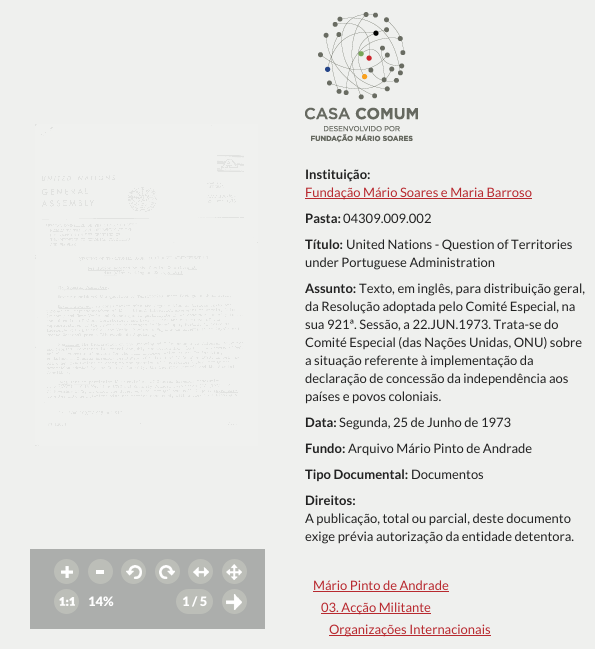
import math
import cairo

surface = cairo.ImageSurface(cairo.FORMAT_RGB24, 595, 649)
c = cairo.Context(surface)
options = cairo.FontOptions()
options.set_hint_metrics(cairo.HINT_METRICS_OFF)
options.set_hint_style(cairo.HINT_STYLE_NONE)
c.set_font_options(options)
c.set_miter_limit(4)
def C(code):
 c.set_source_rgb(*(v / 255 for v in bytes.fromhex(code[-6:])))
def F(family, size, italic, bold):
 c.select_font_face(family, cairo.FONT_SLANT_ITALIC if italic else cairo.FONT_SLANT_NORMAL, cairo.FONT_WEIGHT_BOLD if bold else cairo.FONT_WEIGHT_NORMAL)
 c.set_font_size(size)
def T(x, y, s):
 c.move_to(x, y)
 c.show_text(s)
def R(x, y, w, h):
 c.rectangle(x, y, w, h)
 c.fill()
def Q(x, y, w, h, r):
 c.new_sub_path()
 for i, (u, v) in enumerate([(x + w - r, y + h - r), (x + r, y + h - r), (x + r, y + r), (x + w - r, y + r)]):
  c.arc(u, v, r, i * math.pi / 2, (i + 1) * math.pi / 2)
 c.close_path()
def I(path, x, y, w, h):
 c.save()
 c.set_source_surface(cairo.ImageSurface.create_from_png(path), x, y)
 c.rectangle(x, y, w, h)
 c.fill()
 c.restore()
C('eff0ee')
c.paint()
I('1.png',35,124,223,322)
I('2.png',305,12,113,131)
F('Lato',13,0,1)
C('222222')
T(305,179,'Instituição:')
C('b8292f')
R(305,198,227,1)
F('Lato',13,0,0)
T(305,197,'Fundação Mário Soares e Maria Barroso')
F('Lato',13,0,1)
C('222222')
T(305,223,'Pasta:')
F('Lato',13,0,0)
T(343,223,'04309.009.002')
F('Lato',13,0,1)
T(305,249,'Título:')
F('Lato',13,0,0)
T(346,249,'United Nations - Question of Territories')
T(305,267,'under Portuguese Administration')
F('Lato',13,0,1)
T(305,293,'Assunto:')
F('Lato',13,0,0)
T(359,293,'Texto, em inglês, para distribuição geral,')
T(305,311,'da Resolução adoptada pelo Comité Especial, na')
T(305,329,'sua 921ª. Sessão, a 22.JUN.1973. Trata-se do')
T(305,347,'Comité Especial (das Nações Unidas, ONU) sobre')
T(305,365,'a situação referente à implementação da')
T(305,383,'declaração de concessão da independência aos')
T(305,401,'países e povos coloniais.')
F('Lato',13,0,1)
T(305,427,'Data:')
F('Lato',13,0,0)
T(339,427,'Segunda, 25 de Junho de 1973')
F('Lato',13,0,1)
T(305,453,'Fundo:')
F('Lato',13,0,0)
T(348,453,'Arquivo Mário Pinto de Andrade')
F('Lato',13,0,1)
T(305,479,'Tipo Documental:')
F('Lato',13,0,0)
T(411,479,'Documentos')
F('Lato',13,0,1)
T(305,505,'Direitos:')
F('Lato',13,0,0)
T(305,523,'A publicação, total ou parcial, deste documento')
T(305,541,'exige prévia autorização da entidade detentora.')
C('b8292f')
T(313,590,'Mário Pinto de Andrade')
R(313,591,136,1)
R(321,613,110,1)
T(321,612,'03. Acção Militante')
R(329,635,162,1)
T(329,634,'Organizações Internacionais')
C('acaeac')
R(30,549,235,80)
C('bcbeb8')
c.new_path()
c.arc(66.5,571.5,12.5,0,2 * math.pi)
c.fill()
I('3.png',61,566,12,12)
c.arc(100.5,571.5,12.5,0,2 * math.pi)
c.fill()
C('ffffff')
R(96,570,8,4)
C('bcbeb8')
c.arc(133.5,571.5,12.5,0,2 * math.pi)
c.fill()
I('4.png',126,565,16,14)
c.arc(167.5,571.5,12.5,0,2 * math.pi)
c.fill()
I('5.png',159,565,16,14)
c.arc(200.5,571.5,12.5,0,2 * math.pi)
c.fill()
I('6.png',193,567,16,10)
c.arc(234.5,571.5,12.5,0,2 * math.pi)
c.fill()
I('7.png',226,564,16,16)
c.arc(66.5,601.5,12.5,0,2 * math.pi)
c.fill()
I('8.png',59,597,16,9)
F('Lato Black',13,0,0)
C('ffffff')
T(88,606,'14%')
C('bcbeb8')
Q(176,589,37,25,12.5)
c.fill()
C('ffffff')
T(182,606,'1 / 5')
C('bcbeb8')
c.new_path()
c.arc(234.5,601.5,12.5,0,2 * math.pi)
c.fill()
I('9.png',226,594,16,16)
surface.write_to_png('o.png')
